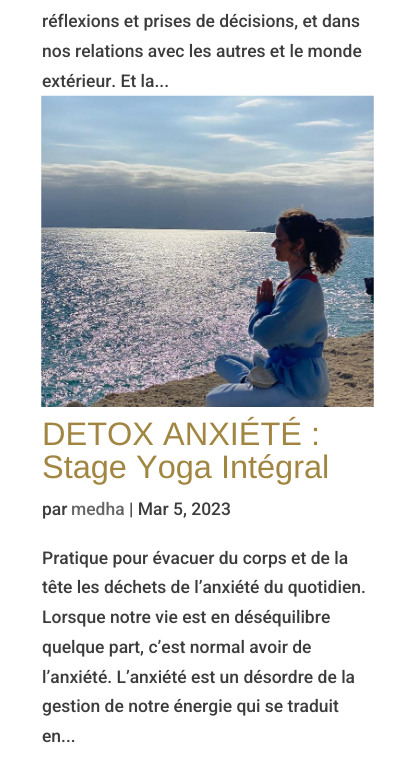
import math
import cairo

surface = cairo.ImageSurface(cairo.FORMAT_RGB24, 414, 759)
c = cairo.Context(surface)
options = cairo.FontOptions()
options.set_hint_metrics(cairo.HINT_METRICS_OFF)
options.set_hint_style(cairo.HINT_STYLE_NONE)
c.set_font_options(options)
c.set_miter_limit(4)
def C(code):
 c.set_source_rgb(*(v / 255 for v in bytes.fromhex(code[-6:])))
def F(family, size, italic, bold):
 c.select_font_face(family, cairo.FONT_SLANT_ITALIC if italic else cairo.FONT_SLANT_NORMAL, cairo.FONT_WEIGHT_BOLD if bold else cairo.FONT_WEIGHT_NORMAL)
 c.set_font_size(size)
def T(x, y, s):
 c.move_to(x, y)
 c.show_text(s)
def I(path, x, y, w, h):
 c.save()
 c.set_source_surface(cairo.ImageSurface.create_from_png(path), x, y)
 c.rectangle(x, y, w, h)
 c.fill()
 c.restore()
C('ffffff')
c.paint()
F('Roboto Medium',17.5,0,0)
C('3c3c3d')
T(42,27,'réflexions et prises de décisions, et dans')
T(42,57,'nos relations avec les autres et le monde')
T(42,87,'extérieur. Et la...')
I('1.png',41,95,333,312)
F('Liberation Sans',32.5,0,0)
C('a18642')
T(42,445,'DETOX ANXIÉTÉ :')
T(42,478,'Stage Yoga Intégral')
F('Roboto Medium',17.5,0,0)
C('3c3c3d')
T(42,515,'par')
C('666666')
T(71,515,'medha')
C('3c3c3d')
T(129,515,'| Mar 5, 2023')
T(42,564,'Pratique pour évacuer du corps et de la')
T(42,593,'tête les déchets de l’anxiété du quotidien.')
T(42,623,'Lorsque notre vie est en déséquilibre')
T(42,653,'quelque part, c’est normal avoir de')
T(42,683,'l’anxiété. L’anxiété est un désordre de la')
T(42,712,'gestion de notre énergie qui se traduit')
T(42,742,'en...')
surface.write_to_png('o.png')
